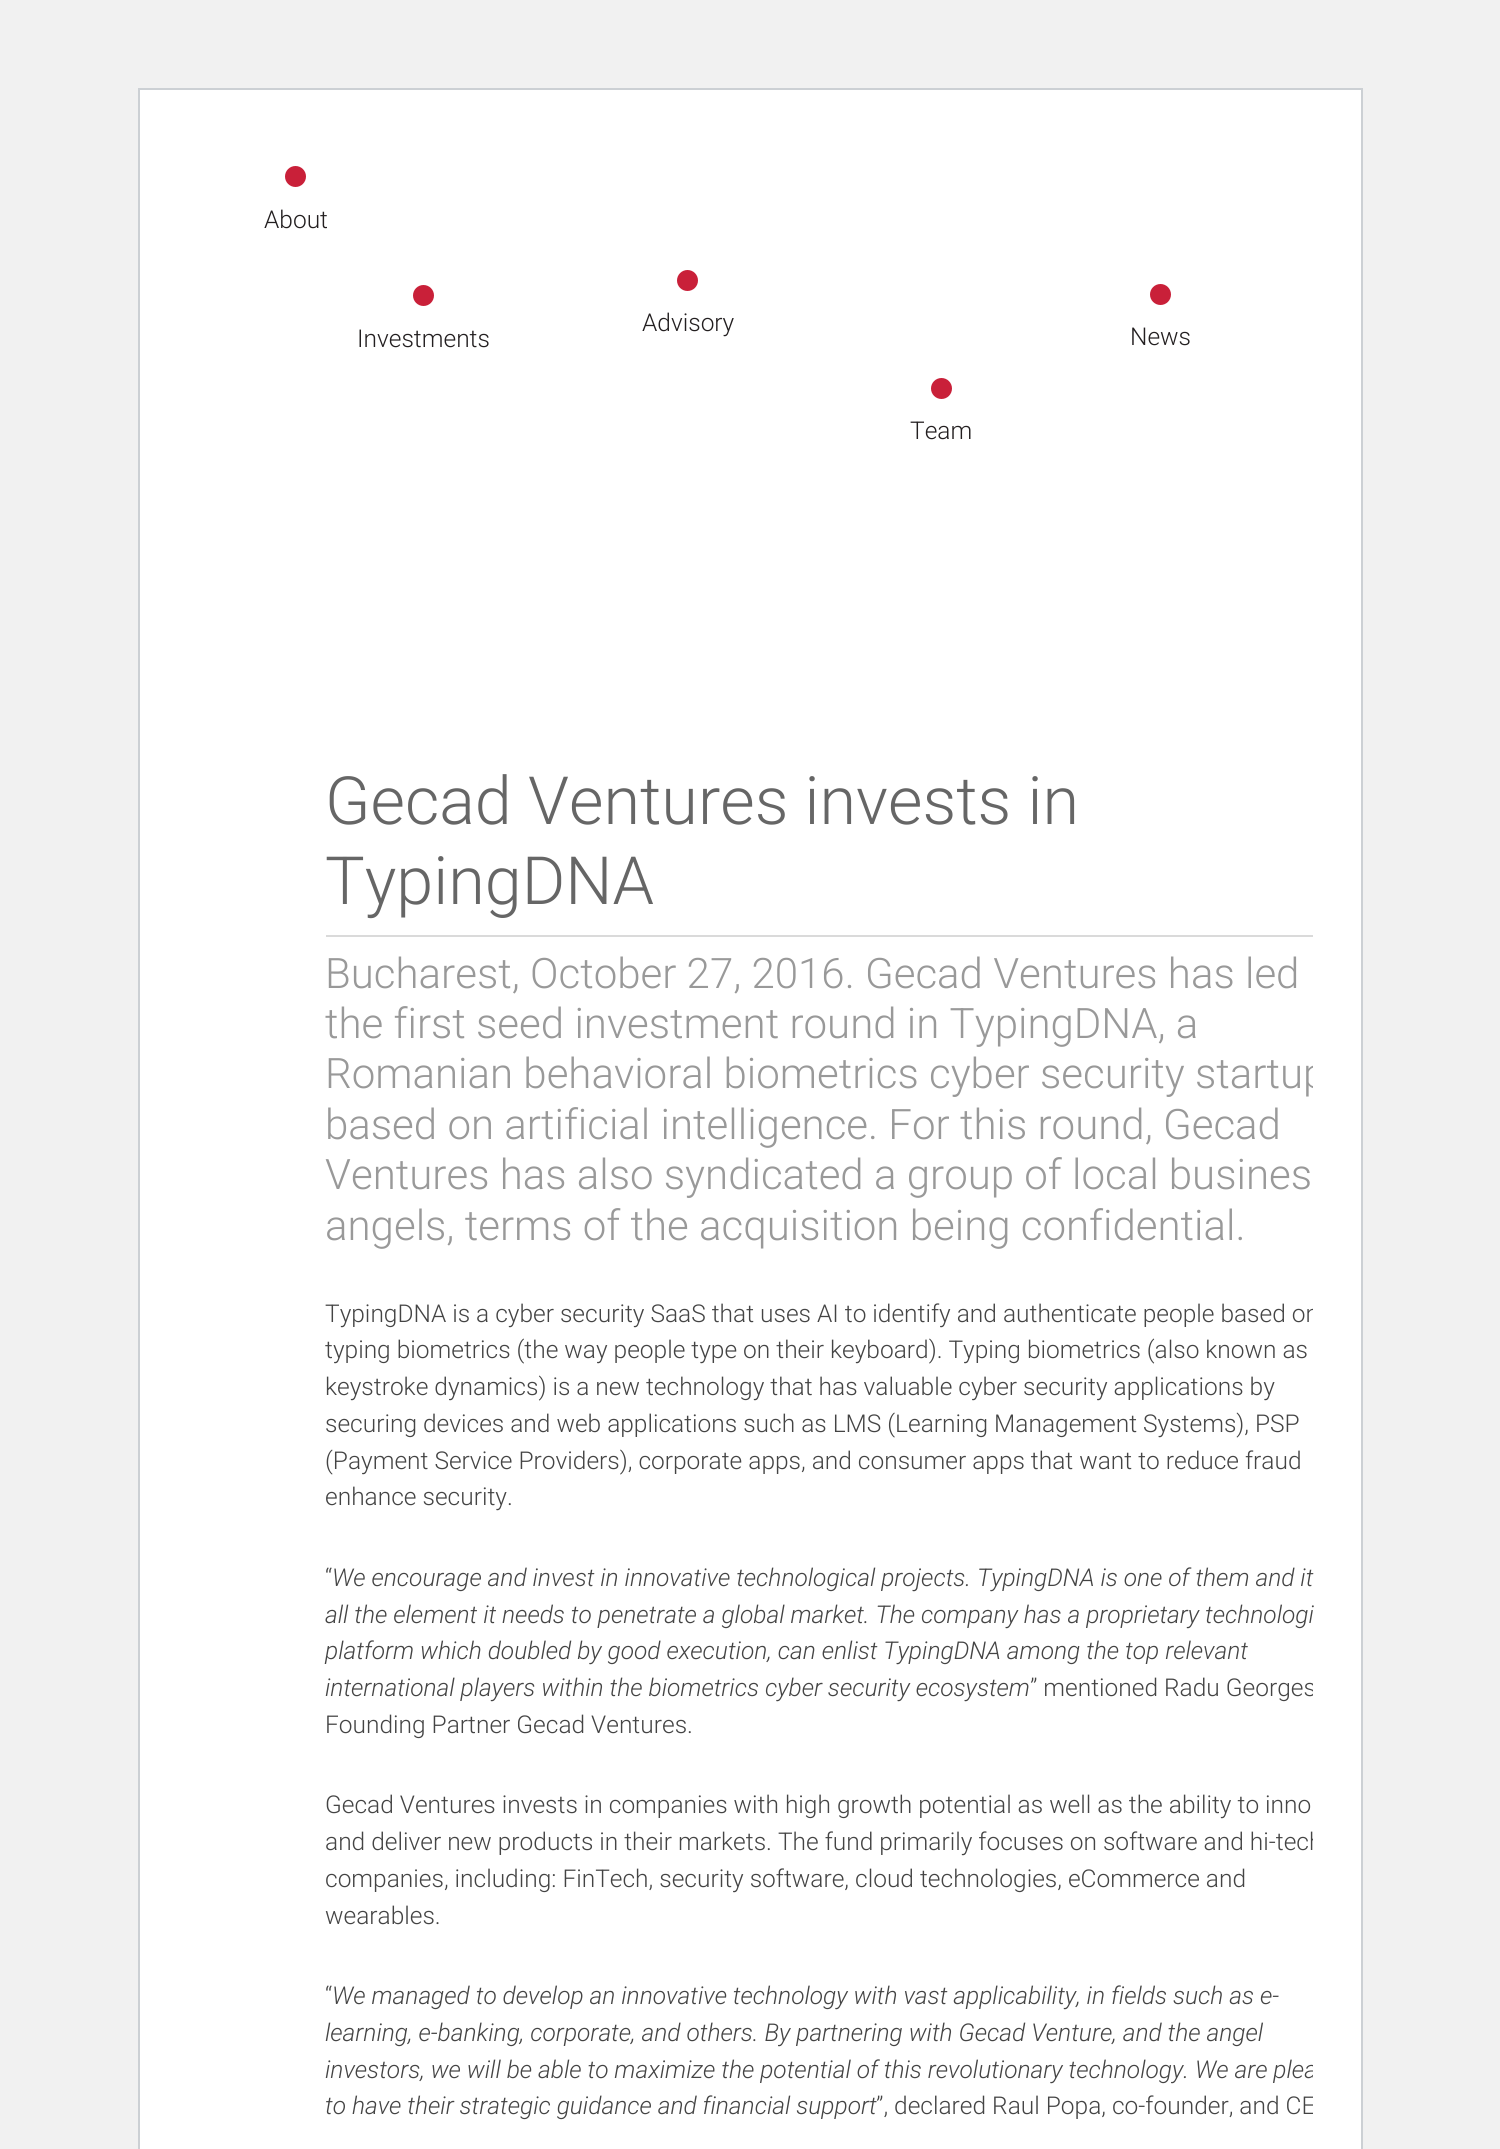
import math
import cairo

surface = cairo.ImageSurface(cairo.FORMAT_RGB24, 1500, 2149)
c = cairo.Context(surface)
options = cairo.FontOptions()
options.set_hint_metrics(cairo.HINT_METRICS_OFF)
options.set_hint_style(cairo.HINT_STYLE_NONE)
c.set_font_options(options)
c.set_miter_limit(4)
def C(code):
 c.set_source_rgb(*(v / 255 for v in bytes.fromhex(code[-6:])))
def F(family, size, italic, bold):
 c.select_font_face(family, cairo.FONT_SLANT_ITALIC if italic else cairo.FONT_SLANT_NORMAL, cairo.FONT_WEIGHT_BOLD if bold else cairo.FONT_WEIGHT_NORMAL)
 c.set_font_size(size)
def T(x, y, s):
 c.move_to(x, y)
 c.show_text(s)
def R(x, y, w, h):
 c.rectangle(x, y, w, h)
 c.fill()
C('f1f1f1')
c.paint()
C('ffffff')
c.rectangle(139,89,1223,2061)
c.fill_preserve()
C('ccd0d4')
c.stroke()
C('c92039')
c.arc(295.5,176.5,10.5,0,2 * math.pi)
c.fill()
F('Roboto Light',24.5,0,0)
C('231f20')
T(264,228,'About')
C('c92039')
c.new_path()
c.arc(423.5,295.5,10.5,0,2 * math.pi)
c.fill()
C('231f20')
T(357,347,'Investments')
C('c92039')
c.new_path()
c.arc(687.5,280.5,10.5,0,2 * math.pi)
c.fill()
C('231f20')
T(642,331,'Advisory')
C('c92039')
c.new_path()
c.arc(1160.5,294.5,10.5,0,2 * math.pi)
c.fill()
C('231f20')
T(1130,345,'News')
C('c92039')
c.new_path()
c.arc(941.5,388.5,10.5,0,2 * math.pi)
c.fill()
C('231f20')
T(910,439,'Team')
C('dadada')
R(326,935,987,2)
F('Roboto Light',66.5,0,0)
C('666666')
T(325,824,'Gecad Ventures invests in')
T(325,904,'TypingDNA')
F('Roboto Light',42,0,0)
C('999999')
T(325,988,'Bucharest, October 27, 2016. Gecad Ventures has led')
T(325,1038,'the first seed investment round in TypingDNA, a')
c.save()
c.rectangle(189,114,1124,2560)
c.clip()
T(325,1088,'Romanian behavioral biometrics cyber security startup')
c.restore()
T(325,1139,'based on artificial intelligence. For this round, Gecad')
T(325,1189,'Ventures has also syndicated a group of local busines')
T(325,1240,'angels, terms of the acquisition being confidential.')
c.save()
c.rectangle(189,114,1124,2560)
c.clip()
F('Roboto Light',24.5,0,0)
C('444444')
T(325,1322,'TypingDNA is a cyber security SaaS that uses AI to identify and authenticate people based on')
c.restore()
F('Roboto Light',24.5,0,0)
C('444444')
T(325,1358,'typing biometrics (the way people type on their keyboard). Typing biometrics (also known as')
T(325,1395,'keystroke dynamics) is a new technology that has valuable cyber security applications by')
T(325,1432,'securing devices and web applications such as LMS (Learning Management Systems), PSP')
T(325,1469,'(Payment Service Providers), corporate apps, and consumer apps that want to reduce fraud')
T(325,1505,'enhance security.')
T(325,1586,'“')
F('Roboto Light',24.5,1,0)
T(332,1586,'We encourage and invest in innovative technological projects. TypingDNA is one of them and it')
T(325,1623,'all the element it needs to penetrate a global market. The company has a proprietary technologi')
T(325,1659,'platform which doubled by good execution, can enlist TypingDNA among the top relevant')
T(325,1696,'international players within the biometrics cyber security ecosystem')
c.save()
c.rectangle(189,114,1124,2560)
c.clip()
F('Roboto Light',24.5,0,0)
T(1030,1696,'” mentioned Radu Georges')
c.restore()
F('Roboto Light',24.5,0,0)
T(325,1733,'Founding Partner Gecad Ventures.')
T(325,1813,'Gecad Ventures invests in companies with high growth potential as well as the ability to inno')
c.save()
c.rectangle(189,114,1124,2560)
c.clip()
T(325,1850,'and deliver new products in their markets. The fund primarily focuses on software and hi-tech')
c.restore()
T(325,1887,'companies, including: FinTech, security software, cloud technologies, eCommerce and')
T(325,1924,'wearables.')
T(325,2004,'“')
F('Roboto Light',24.5,1,0)
T(332,2004,'We managed to develop an innovative technology with vast applicability, in fields such as e-')
T(325,2041,'learning, e-banking, corporate, and others. By partnering with Gecad Venture, and the angel')
c.save()
c.rectangle(189,114,1124,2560)
c.clip()
T(325,2078,'investors, we will be able to maximize the potential of this revolutionary technology. We are plea')
c.restore()
T(325,2114,'to have their strategic guidance and financial support')
c.save()
c.rectangle(189,114,1124,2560)
c.clip()
F('Roboto Light',24.5,0,0)
T(876,2114,'”, declared Raul Popa, co-founder, and CE')
c.restore()
surface.write_to_png('o.png')
